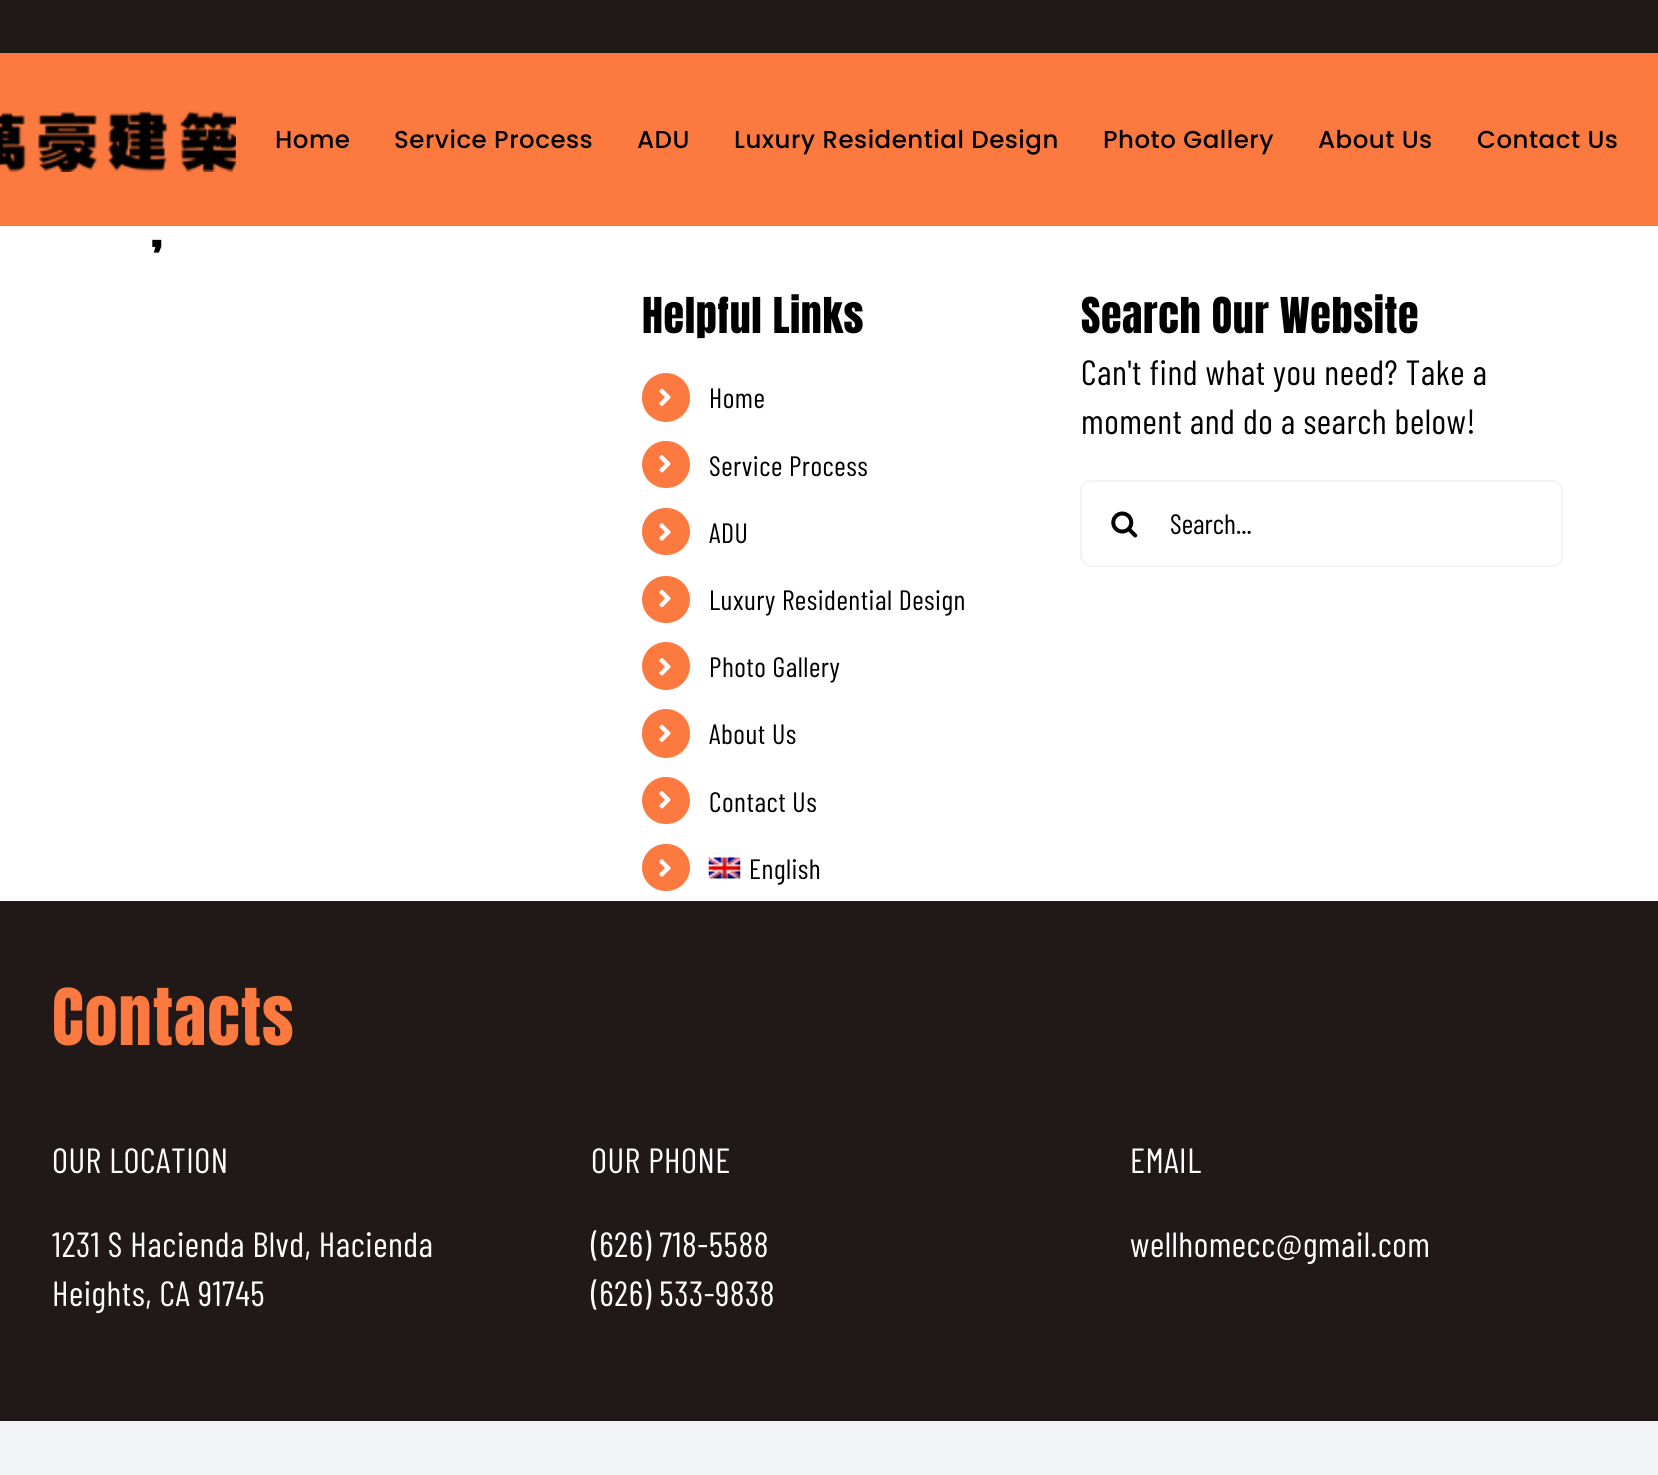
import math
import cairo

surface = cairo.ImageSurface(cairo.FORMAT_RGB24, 1658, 1475)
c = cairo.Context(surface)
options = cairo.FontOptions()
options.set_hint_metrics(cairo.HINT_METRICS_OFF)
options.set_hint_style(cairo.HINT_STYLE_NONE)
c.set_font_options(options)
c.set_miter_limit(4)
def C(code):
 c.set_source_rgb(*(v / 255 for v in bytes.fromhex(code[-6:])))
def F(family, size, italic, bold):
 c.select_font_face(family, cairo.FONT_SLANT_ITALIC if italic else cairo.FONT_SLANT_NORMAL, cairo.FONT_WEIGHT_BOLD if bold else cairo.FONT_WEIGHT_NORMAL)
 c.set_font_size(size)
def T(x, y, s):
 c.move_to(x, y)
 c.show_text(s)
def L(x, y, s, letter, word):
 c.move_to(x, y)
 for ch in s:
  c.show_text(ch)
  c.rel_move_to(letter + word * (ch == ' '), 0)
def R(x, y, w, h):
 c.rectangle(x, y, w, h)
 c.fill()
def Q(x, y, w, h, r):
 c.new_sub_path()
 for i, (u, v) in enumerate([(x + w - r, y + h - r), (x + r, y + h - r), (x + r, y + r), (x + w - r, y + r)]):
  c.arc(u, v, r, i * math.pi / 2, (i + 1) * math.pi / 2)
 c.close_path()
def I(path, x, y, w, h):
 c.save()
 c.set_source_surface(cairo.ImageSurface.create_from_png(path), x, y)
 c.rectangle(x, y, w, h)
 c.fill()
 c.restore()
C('f2f3f5')
c.paint()
C('ffffff')
R(0,226,1658,675)
C('201917')
R(0,0,1658,53)
C('fc7a40')
R(0,53,1658,173)
I('1.png',0,111,236,61)
F('Poppins Medium',24.5,0,0)
C('000000')
L(275,148,'Home',.5,0)
L(394,148,'Service Process',.5,0)
L(637,148,'ADU',.5,0)
L(734,148,'Luxury Residential Design',.5,0)
L(1103,148,'Photo Gallery',.5,0)
L(1318,148,'About Us',.5,0)
L(1477,148,'Contact Us',.5,0)
F('Anton',49,0,0)
L(151,247,',',1,0)
F('Anton',42,0,0)
L(642,333,'Helpful Links',.6,0)
C('fc7a40')
Q(642,373,48,49,24)
c.fill()
I('2.png',659,388,12,18)
F('Barlow Condensed',28,0,0)
C('000000')
L(709,408,'Home',.5,0)
C('fc7a40')
Q(642,441,48,47,23.5)
c.fill()
I('3.png',659,455,12,18)
C('000000')
L(709,476,'Service Process',.5,0)
C('fc7a40')
Q(642,508,48,47,23.5)
c.fill()
I('4.png',659,523,12,18)
C('000000')
L(709,543,'ADU',.5,0)
C('fc7a40')
Q(642,576,48,47,23.5)
c.fill()
I('5.png',659,589,12,19)
C('000000')
L(709,610,'Luxury Residential Design',.5,0)
C('fc7a40')
c.new_path()
c.arc(666,666,24,0,2 * math.pi)
c.fill()
I('3.png',659,658,12,18)
C('000000')
L(709,677,'Photo Gallery',.5,0)
C('fc7a40')
Q(642,709,48,49,24)
c.fill()
I('2.png',659,724,12,18)
C('000000')
L(709,744,'About Us',.5,0)
C('fc7a40')
Q(642,777,48,47,23.5)
c.fill()
I('3.png',659,791,12,18)
C('000000')
L(709,812,'Contact Us',.5,0)
C('fc7a40')
Q(642,844,48,47,23.5)
c.fill()
I('4.png',659,859,12,18)
I('6.png',708,857,33,22)
C('000000')
L(749,879,'English',.5,0)
F('Anton',42,0,0)
L(1081,333,'Search Our Website',.6,0)
F('Barlow Condensed',35,0,0)
L(1081,385,'Can\'t find what you need? Take a',.5,0)
L(1081,434,'moment and do a search below!',.5,0)
Q(1081,481,481,85,10)
C('f2f3f5')
c.stroke()
I('7.png',1111,511,27,27)
F('Barlow Condensed',28,0,0)
C('000000')
T(1170,534,'Search...')
C('201917')
R(0,901,1658,520)
F('Anton',66.5,0,0)
C('fc7a40')
L(52,1045,'Contacts',1,0)
F('Barlow Condensed',35,0,0)
C('ffffff')
L(52,1173,'OUR LOCATION',.5,0)
L(52,1257,'1231 S Hacienda Blvd, Hacienda',.5,0)
L(52,1306,'Heights, CA 91745',.5,0)
L(591,1173,'OUR PHONE',.5,0)
L(591,1257,'(626) 718-5588',.5,0)
L(591,1306,'(626) 533-9838',.5,0)
L(1130,1173,'EMAIL',.5,0)
L(1130,1257,'wellhomecc@gmail.com',.5,0)
surface.write_to_png('o.png')
